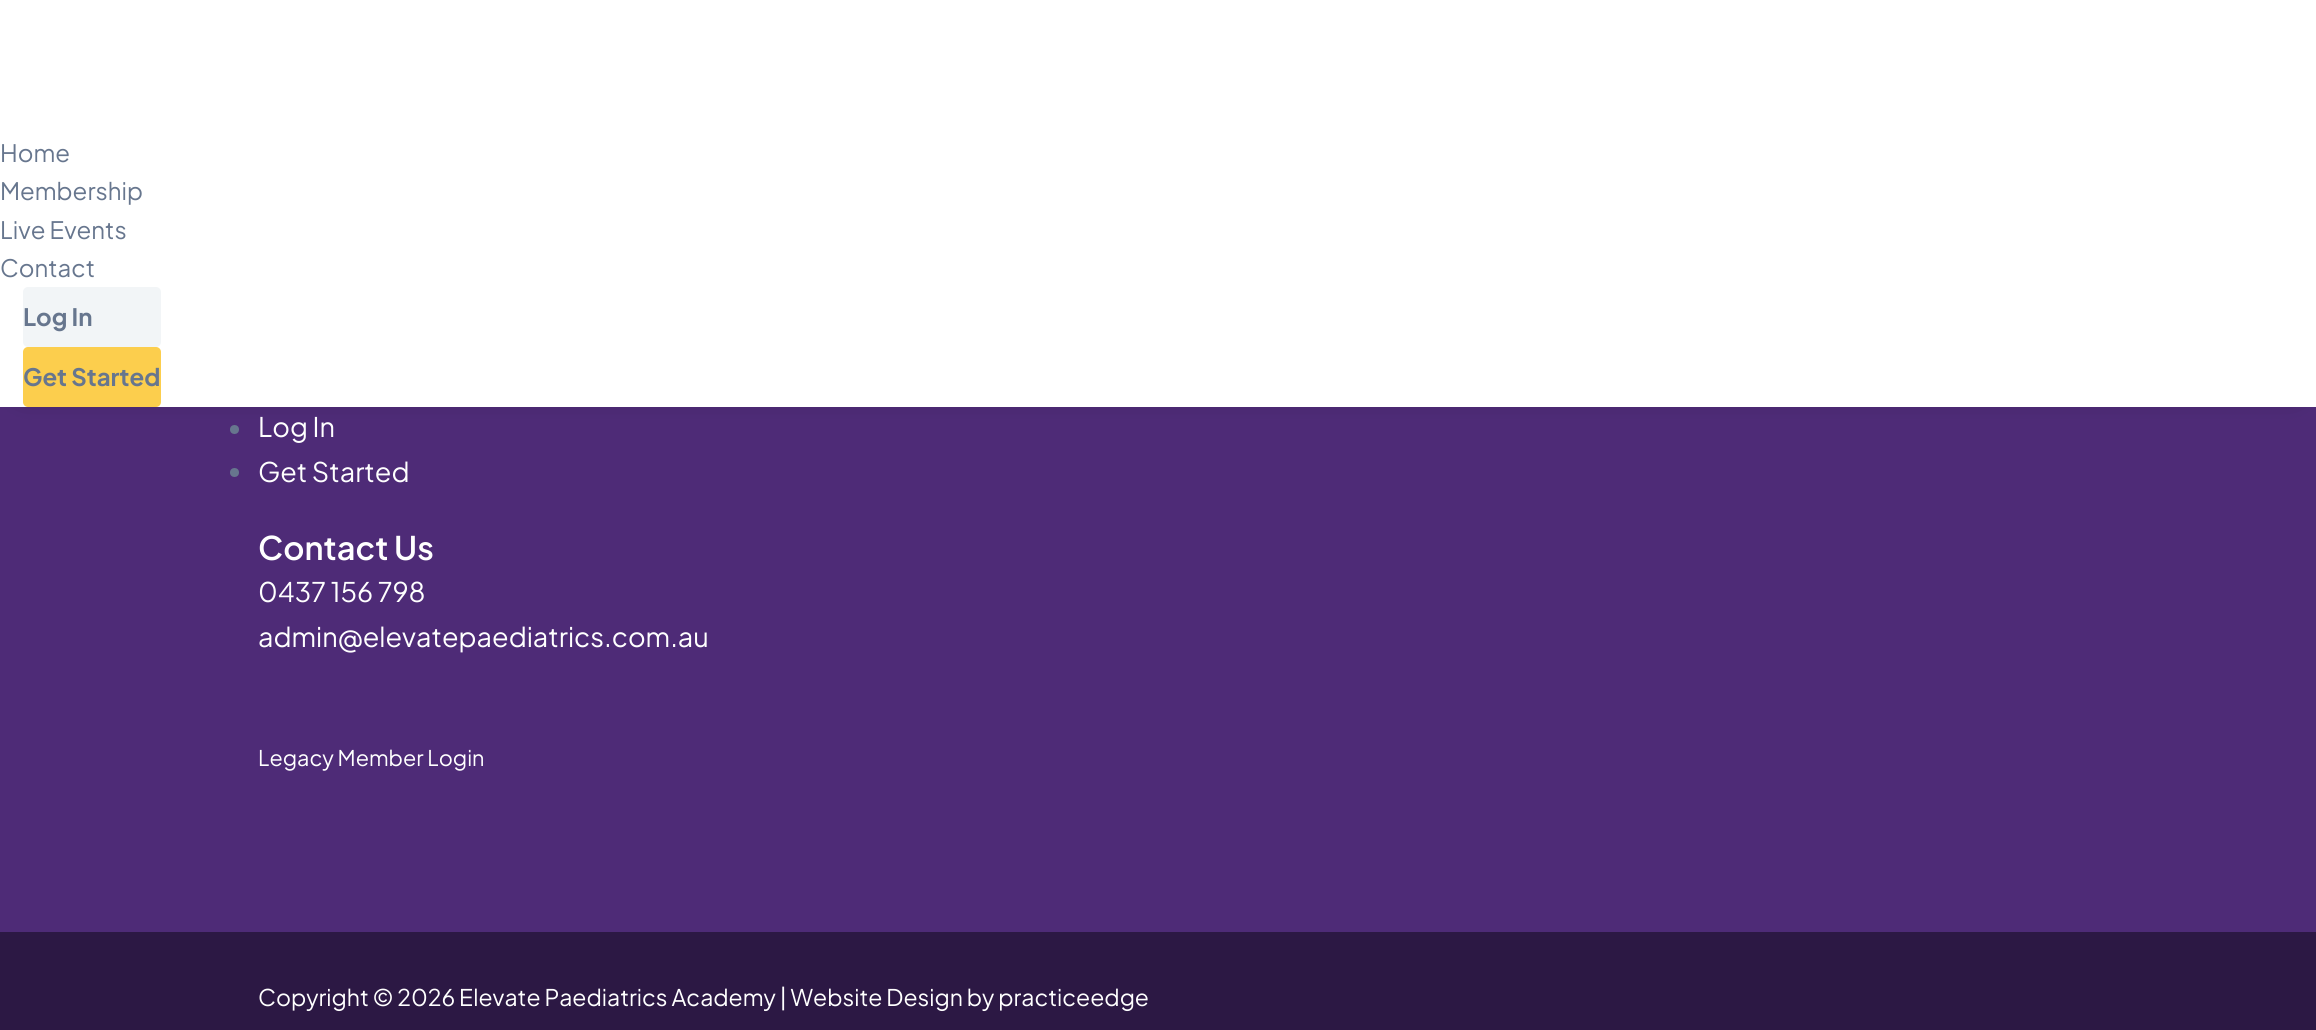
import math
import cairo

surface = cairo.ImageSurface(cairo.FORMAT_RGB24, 2316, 1030)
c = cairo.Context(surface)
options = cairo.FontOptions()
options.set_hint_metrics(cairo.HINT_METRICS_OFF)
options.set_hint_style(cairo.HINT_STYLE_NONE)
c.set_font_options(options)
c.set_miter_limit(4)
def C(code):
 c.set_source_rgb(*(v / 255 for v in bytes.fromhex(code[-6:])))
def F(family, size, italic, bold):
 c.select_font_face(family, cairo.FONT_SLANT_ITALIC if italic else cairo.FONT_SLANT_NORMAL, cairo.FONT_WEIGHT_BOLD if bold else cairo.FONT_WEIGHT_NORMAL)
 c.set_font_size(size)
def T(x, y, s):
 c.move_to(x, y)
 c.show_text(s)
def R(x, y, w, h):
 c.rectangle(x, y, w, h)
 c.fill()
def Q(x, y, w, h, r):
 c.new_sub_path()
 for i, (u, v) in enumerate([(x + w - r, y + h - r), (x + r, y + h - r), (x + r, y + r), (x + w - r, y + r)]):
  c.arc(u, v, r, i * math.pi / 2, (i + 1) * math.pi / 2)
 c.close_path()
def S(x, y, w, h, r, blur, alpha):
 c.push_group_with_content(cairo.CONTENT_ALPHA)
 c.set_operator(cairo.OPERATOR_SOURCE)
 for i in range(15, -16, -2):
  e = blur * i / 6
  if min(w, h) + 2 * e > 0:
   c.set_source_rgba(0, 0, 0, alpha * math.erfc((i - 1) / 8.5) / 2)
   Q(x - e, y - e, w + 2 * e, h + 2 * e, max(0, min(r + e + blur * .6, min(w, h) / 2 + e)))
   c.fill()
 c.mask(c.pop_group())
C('4e2b77')
c.paint()
C('67768e')
c.arc(234.5,429.5,4.5,0,2 * math.pi)
c.fill()
C('000000')
S(23,26,2271,361,0,15,.5)
C('ffffff')
R(0,0,2316,407)
F('Plus Jakarta Sans',24,0,0)
C('67768e')
T(0,162,'Home')
T(0,200,'Membership')
T(0,239,'Live Events')
T(0,277,'Contact')
C('f2f5f7')
Q(23,287,138,60,5)
c.fill()
F('Plus Jakarta Sans',24,0,1)
C('67768e')
T(23,326,'Log In')
C('fcce4d')
Q(23,347,138,60,5)
c.fill()
C('67768e')
T(23,386,'Get Started')
F('Plus Jakarta Sans',27,0,0)
C('ffffff')
T(258,437,'Log In')
C('67768e')
c.new_path()
c.arc(234.5,472.5,4.5,0,2 * math.pi)
c.fill()
C('ffffff')
T(258,482,'Get Started')
F('Plus Jakarta Sans SemiBold',32.5,0,0)
T(258,560,'Contact Us')
F('Plus Jakarta Sans',27,0,0)
T(258,602,'0437 156 798')
T(258,647,'admin@elevatepaediatrics.com.au')
F('Plus Jakarta Sans',21.6,0,0)
T(258,766,'Legacy Member Login')
C('2c1844')
R(0,932,2316,98)
F('Plus Jakarta Sans',22.95,0,0)
C('ffffff')
T(258,1006,'Copyright © 2026 Elevate Paediatrics Academy | Website Design by practiceedge')
surface.write_to_png('o.png')
